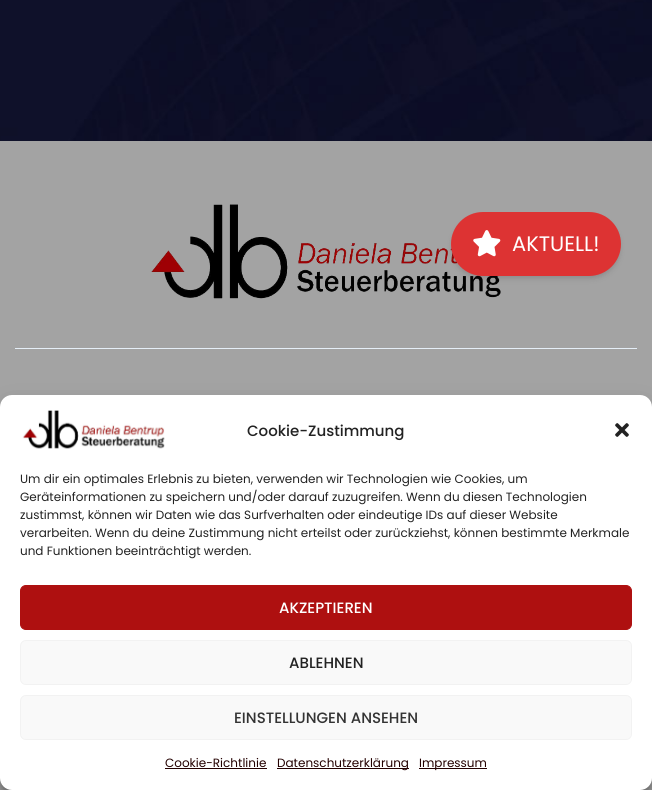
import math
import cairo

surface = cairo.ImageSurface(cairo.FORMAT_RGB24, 652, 790)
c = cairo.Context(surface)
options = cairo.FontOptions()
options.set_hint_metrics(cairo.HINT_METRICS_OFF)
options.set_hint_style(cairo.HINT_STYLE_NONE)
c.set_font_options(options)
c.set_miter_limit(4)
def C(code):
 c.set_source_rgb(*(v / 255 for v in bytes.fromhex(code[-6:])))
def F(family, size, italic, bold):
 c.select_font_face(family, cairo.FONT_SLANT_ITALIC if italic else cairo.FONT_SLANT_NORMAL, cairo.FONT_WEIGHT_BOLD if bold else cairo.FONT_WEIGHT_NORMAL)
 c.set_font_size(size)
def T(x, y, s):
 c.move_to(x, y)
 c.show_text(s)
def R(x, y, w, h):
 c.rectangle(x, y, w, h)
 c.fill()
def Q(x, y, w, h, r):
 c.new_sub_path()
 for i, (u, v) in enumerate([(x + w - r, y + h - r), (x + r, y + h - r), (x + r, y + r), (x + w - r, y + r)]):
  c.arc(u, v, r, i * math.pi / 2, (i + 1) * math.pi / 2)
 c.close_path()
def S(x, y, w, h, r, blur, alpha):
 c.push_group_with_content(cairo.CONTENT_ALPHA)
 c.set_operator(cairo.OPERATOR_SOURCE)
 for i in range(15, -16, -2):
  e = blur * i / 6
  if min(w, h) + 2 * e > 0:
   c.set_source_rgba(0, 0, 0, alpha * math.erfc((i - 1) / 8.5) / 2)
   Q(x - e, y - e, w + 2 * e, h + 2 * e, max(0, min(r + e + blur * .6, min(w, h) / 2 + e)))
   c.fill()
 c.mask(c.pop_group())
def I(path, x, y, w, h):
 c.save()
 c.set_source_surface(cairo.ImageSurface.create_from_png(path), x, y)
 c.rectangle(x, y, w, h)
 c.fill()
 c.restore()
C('a3a3a3')
c.paint()
I('1.png',0,0,652,141)
I('2.png',151,204,350,95)
C('e5eef7')
R(15,348,622,1)
C('000000')
S(452,215,168,62,31,2,.06)
S(452,217,168,62,31,3,.1)
C('dd3333')
Q(451,212,170,64,32)
c.fill()
I('3.png',473,230,28,27)
F('Poppins',21,0,0)
C('ffffff')
T(512,251,'AKTUELL!')
C('000000')
S(0,401,652,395,12,3,.23)
S(0,405,652,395,12,10,.19)
C('808080')
S(582,716,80,60,2,2.5,1)
C('ffffff')
Q(0,395,652,395,12)
c.fill()
I('4.png',22,410,143,39)
F('Poppins Medium',15,0,0)
C('222222')
T(247,436,'Cookie-Zustimmung')
I('5.png',615,423,14,14)
F('Poppins',12,0,0)
T(20,483,'Um dir ein optimales Erlebnis zu bieten, verwenden wir Technologien wie Cookies, um')
T(20,501,'Geräteinformationen zu speichern und/oder darauf zuzugreifen. Wenn du diesen Technologien')
T(20,519,'zustimmst, können wir Daten wie das Surfverhalten oder eindeutige IDs auf dieser Website')
T(20,537,'verarbeiten. Wenn du deine Zustimmung nicht erteilst oder zurückziehst, können bestimmte Merkmale')
T(20,555,'und Funktionen beeinträchtigt werden.')
C('ae1010')
Q(20.5,585.5,611,44,5.5)
c.fill_preserve()
c.set_line_width(1)
c.stroke()
F('Poppins Medium',15,0,0)
C('ffffff')
T(279,613,'AKZEPTIEREN')
C('f9f9f9')
Q(20.5,640.5,611,44,5.5)
c.fill_preserve()
C('f2f2f2')
c.stroke()
C('222222')
T(289,668,'ABLEHNEN')
C('f9f9f9')
Q(20.5,695.5,611,44,5.5)
c.fill_preserve()
C('f2f2f2')
c.stroke()
C('333333')
T(234,723,'EINSTELLUNGEN ANSEHEN')
F('Poppins',12,0,0)
C('230000')
T(165,767,'Cookie-Richtlinie')
R(165,768,102,1)
R(277,768,132,1)
T(277,767,'Datenschutzerklärung')
R(419,768,68,1)
T(419,767,'Impressum')
surface.write_to_png('o.png')
